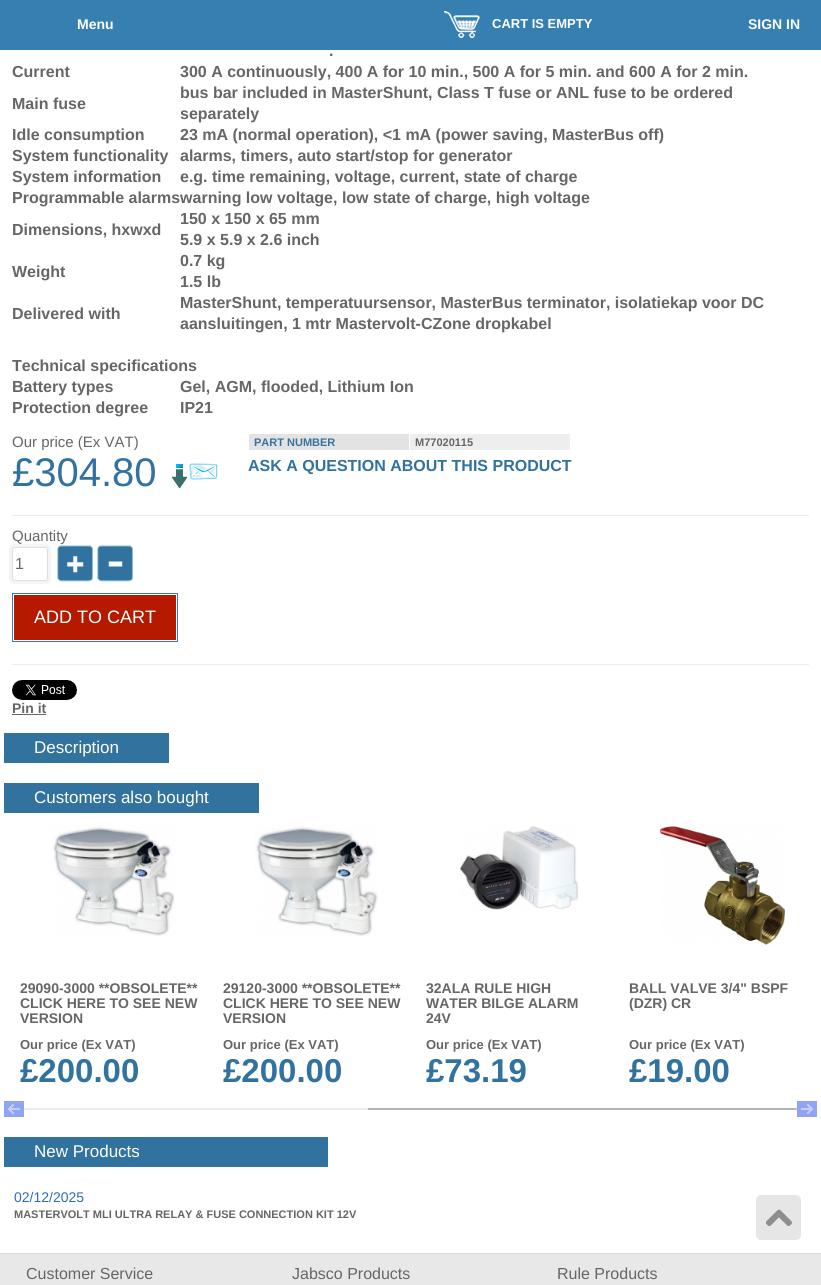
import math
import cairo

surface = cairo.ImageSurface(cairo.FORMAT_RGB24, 821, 1285)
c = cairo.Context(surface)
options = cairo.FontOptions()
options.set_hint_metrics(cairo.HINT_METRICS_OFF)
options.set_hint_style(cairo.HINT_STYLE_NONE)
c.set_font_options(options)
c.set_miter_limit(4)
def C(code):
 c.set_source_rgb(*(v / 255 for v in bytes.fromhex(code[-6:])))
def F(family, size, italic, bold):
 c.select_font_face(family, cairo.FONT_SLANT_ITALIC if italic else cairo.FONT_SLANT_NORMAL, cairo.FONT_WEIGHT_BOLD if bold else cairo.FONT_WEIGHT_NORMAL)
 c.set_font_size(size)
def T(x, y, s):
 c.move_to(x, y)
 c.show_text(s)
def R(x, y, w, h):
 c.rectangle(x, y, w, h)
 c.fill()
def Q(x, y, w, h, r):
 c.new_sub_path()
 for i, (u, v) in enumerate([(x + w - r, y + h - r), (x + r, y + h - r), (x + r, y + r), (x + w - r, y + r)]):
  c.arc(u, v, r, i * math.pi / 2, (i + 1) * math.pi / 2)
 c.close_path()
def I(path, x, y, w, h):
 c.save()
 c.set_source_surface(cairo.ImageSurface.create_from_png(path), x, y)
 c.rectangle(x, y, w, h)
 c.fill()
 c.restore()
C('ffffff')
c.paint()
C('367fb1')
R(0,0,821,50)
F('Liberation Sans',14,0,1)
C('ffffff')
T(77,29,'Menu')
I('1.png',444,11,36,27)
F('Liberation Sans',13,0,1)
T(492,28,'CART IS EMPTY')
F('Liberation Sans',14,0,1)
T(748,29,'SIGN IN')
F('Liberation Sans',16,0,1)
C('666666')
T(329,56,'.')
T(12,77,'Current')
T(180,77,'300 A continuously, 400 A for 10 min., 500 A for 5 min. and 600 A for 2 min.')
T(12,109,'Main fuse')
T(180,98,'bus bar included in MasterShunt, Class T fuse or ANL fuse to be ordered')
T(180,119,'separately')
T(12,140,'Idle consumption')
T(180,140,'23 mA (normal operation), <1 mA (power saving, MasterBus off)')
T(12,161,'System functionality')
T(180,161,'alarms, timers, auto start/stop for generator')
T(12,182,'System information')
T(180,182,'e.g. time remaining, voltage, current, state of charge')
T(12,203,'Programmable alarmswarning low voltage, low state of charge, high voltage')
T(12,235,'Dimensions, hxwxd')
T(180,224,'150 x 150 x 65 mm')
T(180,245,'5.9 x 5.9 x 2.6 inch')
T(12,277,'Weight')
T(180,266,'0.7 kg')
T(180,287,'1.5 lb')
T(12,319,'Delivered with')
T(180,308,'MasterShunt, temperatuursensor, MasterBus terminator, isolatiekap voor DC')
T(180,329,'aansluitingen, 1 mtr Mastervolt-CZone dropkabel')
T(12,371,'Technical specifications')
T(12,392,'Battery types')
T(180,392,'Gel, AGM, flooded, Lithium Ion')
T(12,413,'Protection degree')
T(180,413,'IP21')
F('Liberation Sans',15,0,0)
T(12,447,'Our price (Ex VAT)')
F('Liberation Sans',40,0,0)
C('31729f')
T(12,486,'£304.80')
I('2.png',172,463,46,26)
C('e3e3e3')
R(249,434,160,16)
F('Liberation Sans',11,0,1)
C('37729f')
T(254,446,'PART NUMBER')
C('eeeeee')
R(410,434,160,16)
C('666666')
T(415,446,'M77020115')
F('Liberation Sans',16,0,1)
C('31729f')
T(248,471,'ASK A QUESTION ABOUT THIS PRODUCT')
C('ececec')
R(12,515,797,1)
Q(10.5,545.5,39,37,4.5)
C('f4f4f4')
c.set_line_width(3)
c.stroke()
F('Liberation Sans',15,0,0)
C('666666')
T(12,541,'Quantity')
C('ffffff')
Q(12.5,547.5,35,33,2.5)
c.fill_preserve()
C('dedede')
c.set_line_width(1)
c.stroke()
F('Liberation Sans',16,0,0)
C('666666')
T(15,569,'1')
I('3.png',57,545,36,37)
I('4.png',97,545,36,37)
c.rectangle(12.5,593.5,165,48)
C('367fb1')
c.stroke()
C('b51a00')
R(14,595,162,45)
F('Liberation Sans',18,0,0)
C('ffffff')
T(34,623,'ADD TO CART')
C('ececec')
R(12,664,797,1)
I('5.png',12,680,65,20)
F('Liberation Sans',14,0,1)
C('666666')
T(12,713,'Pin it')
R(12,714,34,1)
C('31729f')
R(4,733,165,30)
F('Liberation Sans',17,0,0)
C('ffffff')
T(34,753,'Description')
C('31729f')
R(4,783,255,30)
C('ffffff')
T(34,803,'Customers also bought')
I('6.png',51,823,124,113)
F('Liberation Sans',14,0,1)
C('666666')
T(20,993,'29090-3000 **OBSOLETE**')
T(20,1008,'CLICK HERE TO SEE NEW')
T(20,1023,'VERSION')
F('Liberation Sans',13,0,1)
T(20,1049,'Our price (Ex VAT)')
F('Liberation Sans',33,0,1)
C('31729f')
T(20,1082,'£200.00')
I('6.png',254,823,124,113)
F('Liberation Sans',14,0,1)
C('666666')
T(223,993,'29120-3000 **OBSOLETE**')
T(223,1008,'CLICK HERE TO SEE NEW')
T(223,1023,'VERSION')
F('Liberation Sans',13,0,1)
T(223,1049,'Our price (Ex VAT)')
F('Liberation Sans',33,0,1)
C('31729f')
T(223,1082,'£200.00')
I('7.png',459,826,119,84)
F('Liberation Sans',14,0,1)
C('666666')
T(426,993,'32ALA RULE HIGH')
T(426,1008,'WATER BILGE ALARM')
T(426,1023,'24V')
F('Liberation Sans',13,0,1)
T(426,1049,'Our price (Ex VAT)')
F('Liberation Sans',33,0,1)
C('31729f')
T(426,1082,'£73.19')
I('8.png',660,824,125,123)
F('Liberation Sans',14,0,1)
C('666666')
T(629,993,'BALL VALVE 3/4" BSPF')
T(629,1008,'(DZR) CR')
F('Liberation Sans',13,0,1)
T(629,1049,'Our price (Ex VAT)')
F('Liberation Sans',33,0,1)
C('31729f')
T(629,1082,'£19.00')
C('91a4f4')
R(4,1101,20,16)
I('9.png',8,1104,12,10)
C('b3b3b3')
Q(24,1108,773,2,1)
c.fill()
c.set_source_rgba(1,1,1,0.75)
Q(24,1107,344,4,2)
c.fill()
C('91a4f4')
R(797,1101,20,16)
I('10.png',801,1104,12,10)
C('31729f')
R(4,1137,324,30)
F('Liberation Sans',17,0,0)
C('ffffff')
T(34,1157,'New Products')
F('Liberation Sans',14,0,0)
C('3366cc')
T(14,1202,'02/12/2025')
F('Liberation Sans',11,0,1)
C('666666')
T(14,1218,'MASTERVOLT MLI ULTRA RELAY & FUSE CONNECTION KIT 12V')
C('e8e8e8')
R(0,1254,821,31)
C('dadada')
R(0,1253,821,1)
F('Liberation Sans',16,0,0)
C('666666')
T(26,1279,'Customer Service')
T(292,1279,'Jabsco Products')
T(557,1279,'Rule Products')
C('e6e6e6')
Q(756,1195,45,45,5)
c.fill()
I('11.png',765,1209,27,17)
surface.write_to_png('o.png')
